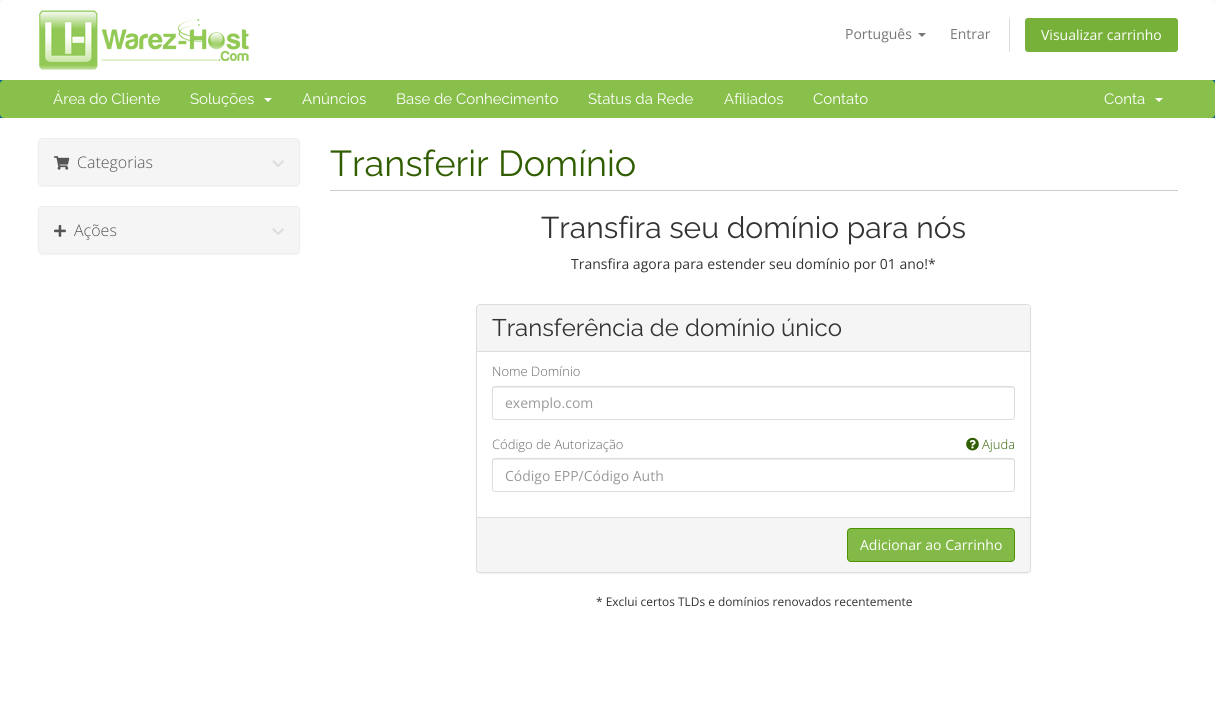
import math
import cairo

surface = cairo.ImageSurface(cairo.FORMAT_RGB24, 1215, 711)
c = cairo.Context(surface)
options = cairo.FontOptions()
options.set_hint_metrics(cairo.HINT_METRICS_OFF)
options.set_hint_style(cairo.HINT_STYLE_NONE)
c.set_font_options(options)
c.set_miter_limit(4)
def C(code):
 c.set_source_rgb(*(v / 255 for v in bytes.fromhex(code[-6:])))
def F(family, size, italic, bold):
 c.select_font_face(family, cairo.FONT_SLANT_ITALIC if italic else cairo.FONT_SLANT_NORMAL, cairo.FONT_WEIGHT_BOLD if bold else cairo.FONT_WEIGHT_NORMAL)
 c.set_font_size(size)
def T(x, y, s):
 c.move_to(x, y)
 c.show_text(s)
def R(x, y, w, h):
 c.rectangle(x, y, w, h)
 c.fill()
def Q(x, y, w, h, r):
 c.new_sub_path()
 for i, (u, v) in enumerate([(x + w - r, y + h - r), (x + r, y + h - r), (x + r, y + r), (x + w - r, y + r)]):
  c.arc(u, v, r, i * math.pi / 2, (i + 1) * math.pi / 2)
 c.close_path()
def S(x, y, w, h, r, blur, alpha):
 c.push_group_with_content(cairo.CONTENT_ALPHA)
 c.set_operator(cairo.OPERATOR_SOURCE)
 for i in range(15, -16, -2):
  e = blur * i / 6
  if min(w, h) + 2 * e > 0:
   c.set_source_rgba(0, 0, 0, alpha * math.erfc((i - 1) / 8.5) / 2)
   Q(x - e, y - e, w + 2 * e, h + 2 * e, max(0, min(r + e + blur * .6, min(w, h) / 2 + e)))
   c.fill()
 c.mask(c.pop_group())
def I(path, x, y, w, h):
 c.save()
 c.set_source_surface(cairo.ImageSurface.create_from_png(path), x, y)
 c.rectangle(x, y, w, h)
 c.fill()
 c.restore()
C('f8f8f8')
c.paint()
C('ffffff')
c.new_path()
c.move_to(5,0)
c.line_to(1210,0)
c.curve_to(1213,0,1215,2,1215,5)
c.line_to(1215,80)
c.line_to(0,80)
c.line_to(0,5)
c.curve_to(0,2,2,0,5,0)
c.close_path()
c.fill()
I('1.png',39,10,210,60)
F('Open Sans',14,0,0)
C('777777')
T(845,39,'Português')
c.new_path()
c.move_to(918,33)
c.line_to(926,33)
c.line_to(922,37)
c.close_path()
c.fill()
T(950,39,'Entrar')
C('dddddd')
R(1009,18,1,34)
C('77b13a')
Q(1025,18,153,34,3)
c.fill()
C('ffffff')
T(1041,40,'Visualizar carrinho')
C('006687')
R(0,80,1215,38)
C('88c04b')
Q(0,80,1215,38,4)
c.fill()
F('Raleway',15,0,0)
C('ffffff')
T(53,104,'Área do Cliente')
T(190,104,'Soluções')
c.new_path()
c.move_to(264,98)
c.line_to(272,98)
c.line_to(268,102)
c.close_path()
c.fill()
T(302,104,'Anúncios')
T(396,104,'Base de Conhecimento')
T(588,104,'Status da Rede')
T(724,104,'Afiliados')
T(813,104,'Contato')
T(1104,104,'Conta')
c.new_path()
c.move_to(1155,98)
c.line_to(1163,98)
c.line_to(1159,102)
c.close_path()
c.fill()
R(0,118,1215,593)
C('000000')
S(38,139,262,48,4,.5,.05)
Q(38.5,138.5,261,47,3.5)
C('eeeeee')
c.set_line_width(1)
c.stroke()
C('f5f5f5')
c.new_path()
c.move_to(42,139)
c.line_to(296,139)
c.curve_to(297.5,139,299,140.5,299,142)
c.line_to(299,185)
c.line_to(39,185)
c.line_to(39,142)
c.curve_to(39,140.5,40.5,139,42,139)
c.close_path()
c.fill()
I('2.png',54,156,16,14)
F('Open Sans Light',16,0,0)
C('555555')
T(77,168,'Categorias')
I('3.png',272,160,12,7)
C('000000')
S(38,207,262,48,4,.5,.05)
Q(38.5,206.5,261,47,3.5)
C('eeeeee')
c.stroke()
C('f5f5f5')
c.new_path()
c.move_to(42,207)
c.line_to(296,207)
c.curve_to(297.5,207,299,208.5,299,210)
c.line_to(299,253)
c.line_to(39,253)
c.line_to(39,210)
c.curve_to(39,208.5,40.5,207,42,207)
c.close_path()
c.fill()
I('4.png',54,224,12,13)
C('555555')
T(74,236,'Ações')
I('3.png',272,228,12,7)
C('cccccc')
R(330,190,848,1)
F('Raleway',36,0,0)
C('305d00')
T(330,176,'Transferir Domínio')
F('Raleway',30,0,0)
C('333333')
T(541,238,'Transfira seu domínio para nós')
F('Open Sans',14,0,0)
T(571,269,'Transfira agora para estender seu domínio por 01 ano!*')
C('000000')
S(476,305,555,269,4,.5,.05)
C('ffffff')
Q(476.5,304.5,554,268,3.5)
c.fill_preserve()
C('dddddd')
c.stroke()
C('f5f5f5')
c.new_path()
c.move_to(480,305)
c.line_to(1027,305)
c.curve_to(1028.5,305,1030,306.5,1030,308)
c.line_to(1030,352)
c.line_to(477,352)
c.line_to(477,308)
c.curve_to(477,306.5,478.5,305,480,305)
c.close_path()
c.fill()
C('dddddd')
R(477,351,553,1)
F('Raleway',24,0,0)
C('333333')
T(492,336,'Transferência de domínio único')
F('Open Sans Light',13,0,0)
C('666666')
T(492,376,'Nome Domínio')
C('ececec')
c.new_path()
c.move_to(495,388)
c.line_to(1012,388)
c.curve_to(1013,388,1014,389,1014,390)
c.curve_to(1014,389,1014,387,1012,387)
c.line_to(495,387)
c.line_to(493,388)
c.line_to(493,390)
c.curve_to(493,389,494,388,495,388)
c.close_path()
c.fill()
Q(492.5,386.5,522,33,2.5)
C('dddddd')
c.stroke()
F('Open Sans',14,0,0)
C('999999')
T(505,408,'exemplo.com')
F('Open Sans Light',13,0,0)
C('666666')
T(492,449,'Código de Autorização')
I('5.png',966,437,13,14)
C('305d00')
T(982,449,'Ajuda')
C('ececec')
c.new_path()
c.move_to(495,460)
c.line_to(1012,460)
c.curve_to(1013,460,1014,461,1014,462)
c.curve_to(1014,461,1014,459,1012,459)
c.line_to(495,459)
c.line_to(493,460)
c.line_to(493,462)
c.curve_to(493,461,494,460,495,460)
c.close_path()
c.fill()
Q(492.5,458.5,522,33,2.5)
C('dddddd')
c.stroke()
F('Open Sans',14,0,0)
C('999999')
T(505,481,'Código EPP/Código Auth')
C('f5f5f5')
c.new_path()
c.move_to(477,517)
c.line_to(1030,517)
c.line_to(1030,569)
c.curve_to(1030,570.5,1028.5,572,1027,572)
c.line_to(480,572)
c.curve_to(478.5,572,477,570.5,477,569)
c.close_path()
c.fill()
C('dddddd')
R(477,517,553,1)
C('83ba47')
Q(847.5,528.5,167,33,3.5)
c.fill_preserve()
C('4d9203')
c.stroke()
C('ffffff')
T(860,550,'Adicionar ao Carrinho')
F('Open Sans',11.9,0,0)
C('333333')
T(596,606,'* Exclui certos TLDs e domínios renovados recentemente')
surface.write_to_png('o.png')
